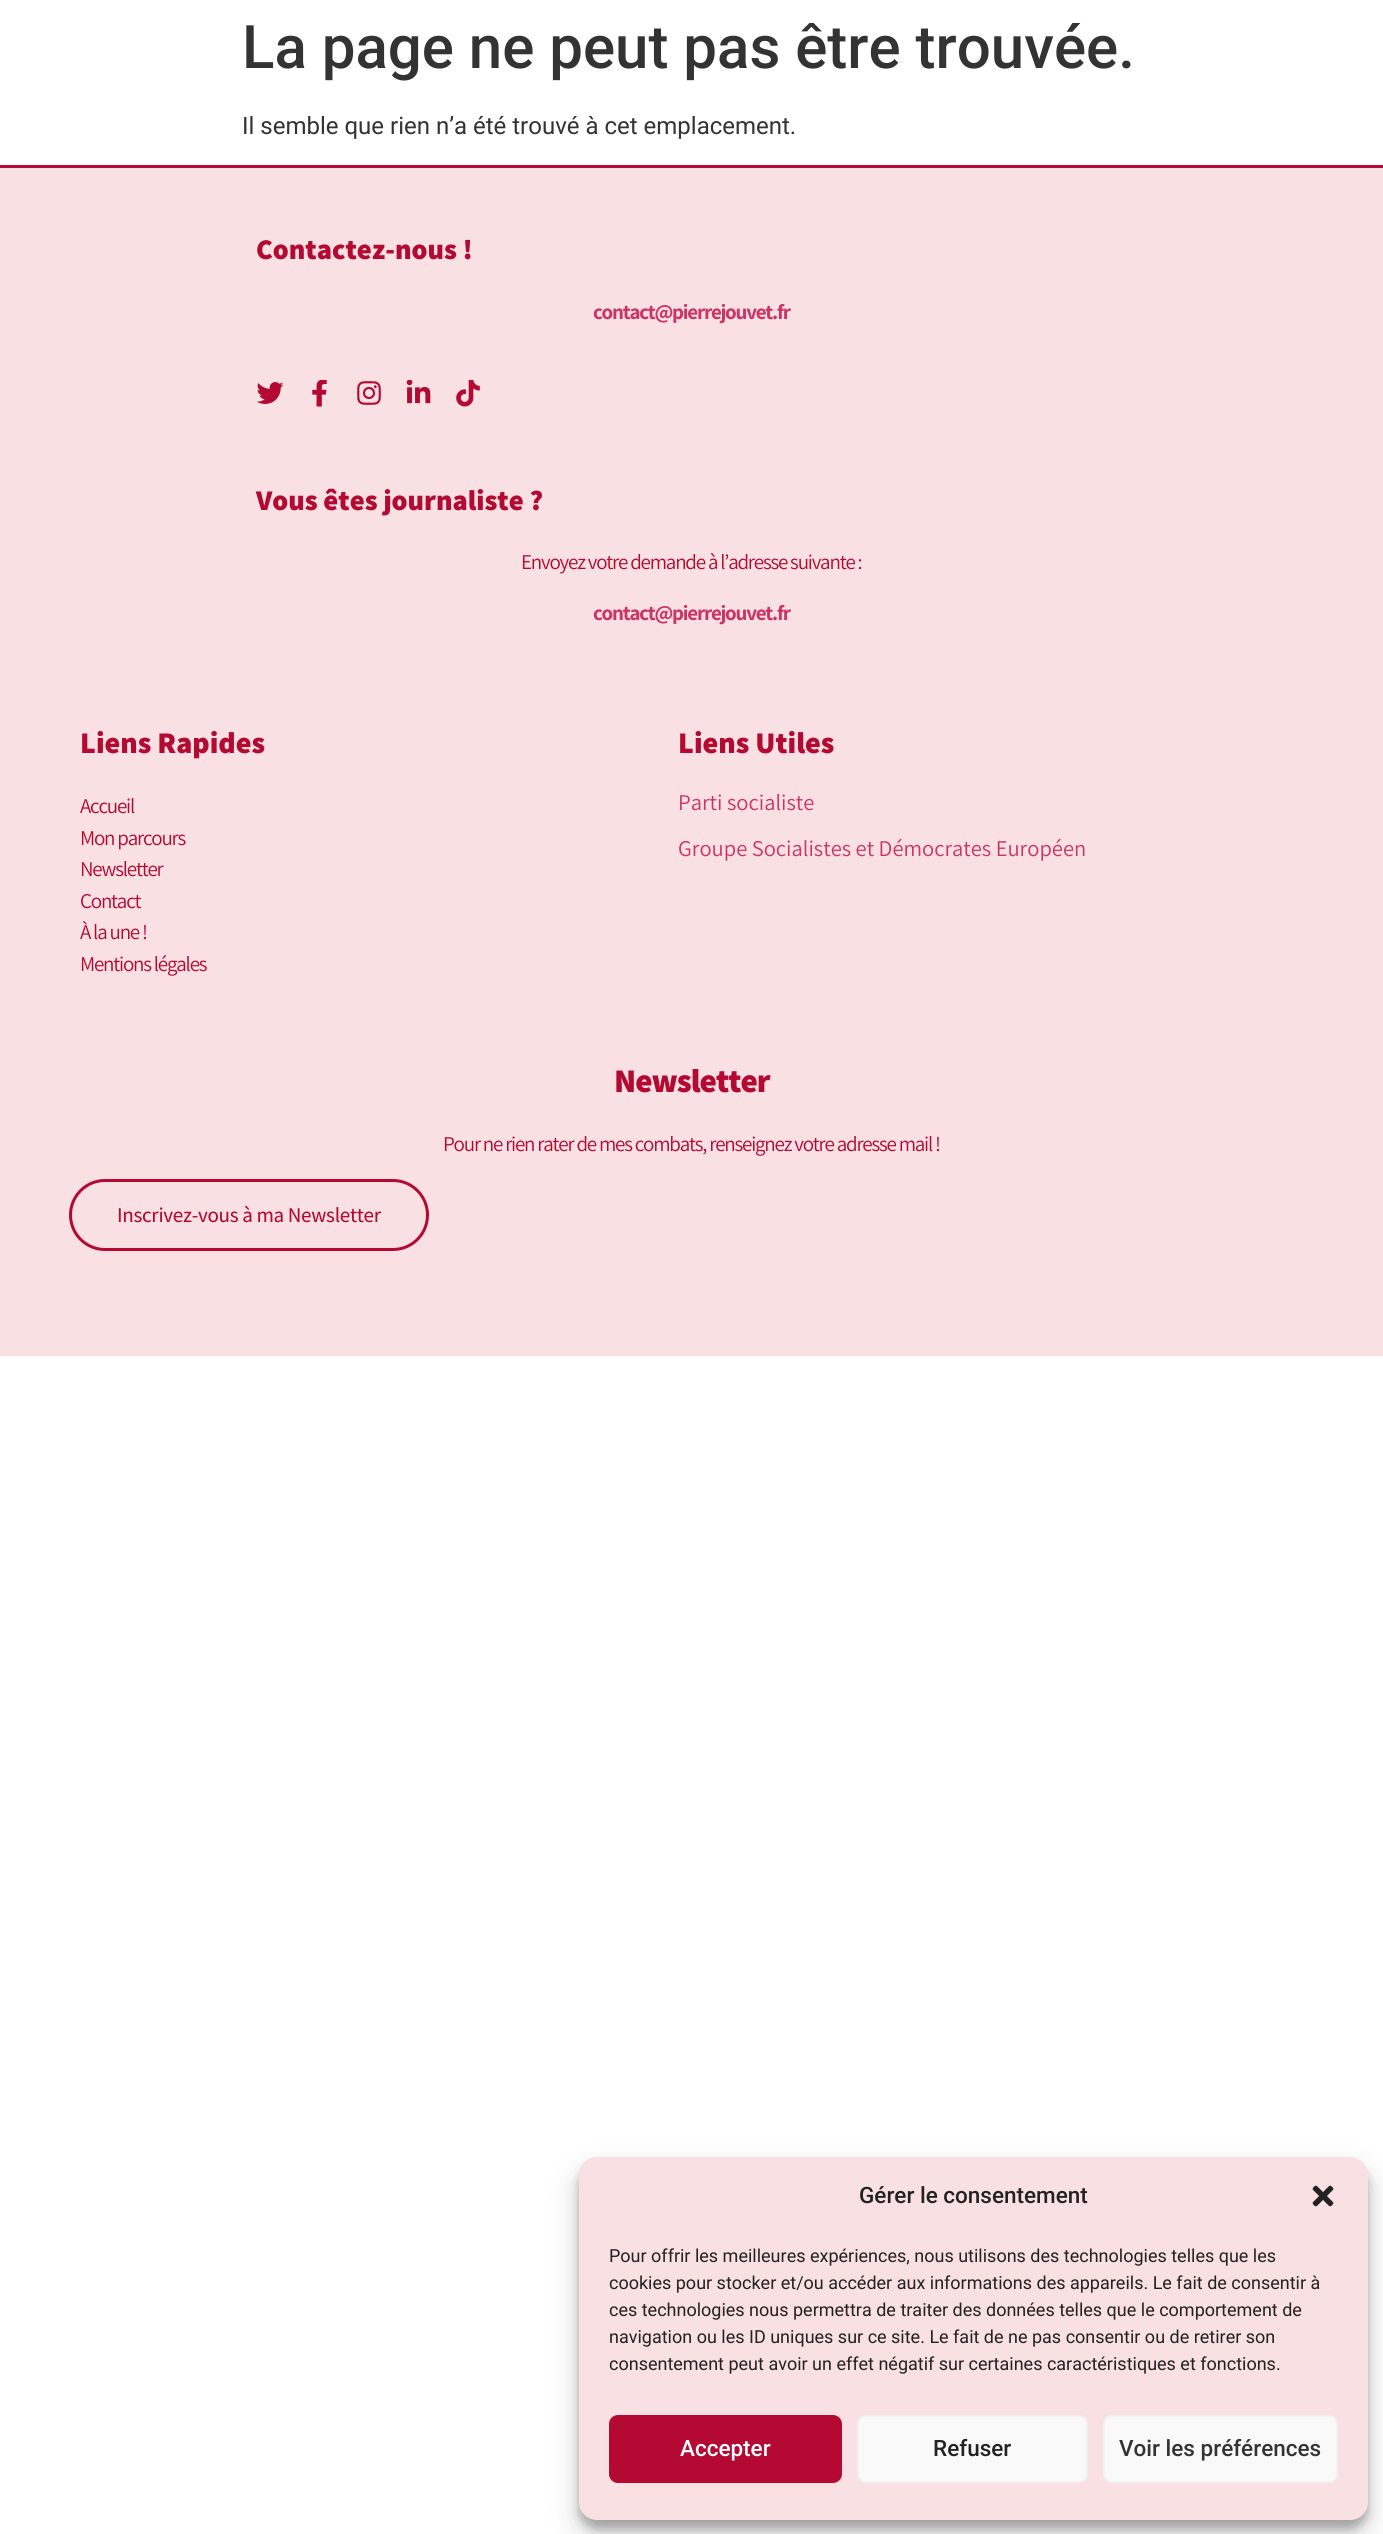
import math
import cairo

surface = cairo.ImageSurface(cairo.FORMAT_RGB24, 1383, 2534)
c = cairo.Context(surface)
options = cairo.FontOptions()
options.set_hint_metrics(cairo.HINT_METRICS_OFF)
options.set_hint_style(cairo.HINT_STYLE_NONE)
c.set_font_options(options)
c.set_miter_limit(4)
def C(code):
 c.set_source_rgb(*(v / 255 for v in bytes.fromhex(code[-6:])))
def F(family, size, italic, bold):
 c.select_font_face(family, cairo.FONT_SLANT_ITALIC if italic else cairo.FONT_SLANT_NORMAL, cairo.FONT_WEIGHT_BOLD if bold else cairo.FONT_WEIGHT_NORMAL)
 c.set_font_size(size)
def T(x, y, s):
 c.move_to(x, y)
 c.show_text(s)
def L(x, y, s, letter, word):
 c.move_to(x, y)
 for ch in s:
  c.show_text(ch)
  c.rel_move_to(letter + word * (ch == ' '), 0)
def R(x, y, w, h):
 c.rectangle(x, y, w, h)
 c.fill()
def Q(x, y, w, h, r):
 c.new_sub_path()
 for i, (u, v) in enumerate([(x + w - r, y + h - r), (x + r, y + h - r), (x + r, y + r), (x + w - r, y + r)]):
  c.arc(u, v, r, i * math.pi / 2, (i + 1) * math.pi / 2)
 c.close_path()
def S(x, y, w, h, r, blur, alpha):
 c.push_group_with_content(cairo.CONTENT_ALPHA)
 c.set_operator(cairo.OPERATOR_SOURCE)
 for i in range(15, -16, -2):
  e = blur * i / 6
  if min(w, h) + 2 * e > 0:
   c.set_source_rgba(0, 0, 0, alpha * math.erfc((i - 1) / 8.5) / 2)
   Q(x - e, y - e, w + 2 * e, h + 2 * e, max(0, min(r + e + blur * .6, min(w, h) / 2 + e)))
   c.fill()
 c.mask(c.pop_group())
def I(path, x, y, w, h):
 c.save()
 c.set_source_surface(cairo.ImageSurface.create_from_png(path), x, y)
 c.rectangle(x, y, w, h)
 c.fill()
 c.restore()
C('ffffff')
c.paint()
F('Roboto Medium',60,0,0)
C('333333')
T(242,68,'La page ne peut pas être trouvée.')
F('Roboto',24,0,0)
T(242,134,'Il semble que rien n’a été trouvé à cet emplacement.')
C('f9e0e2')
R(0,168,1383,1188)
C('b30933')
R(0,165,1383,3)
F('Assistant ExtraBold',28.5,0,0)
T(256,259,'Contactez-nous !')
F('Assistant',21,0,1)
C('cc3366')
L(593,319,'contact@pierrejouvet.fr',-1.2,0)
I('1.png',257,382,27,22)
I('2.png',312,380,15,27)
I('3.png',357,381,24,24)
I('4.png',406,380,25,24)
I('5.png',456,380,24,27)
F('Assistant ExtraBold',28.5,0,0)
C('b30933')
T(256,510,'Vous êtes journaliste ?')
F('Assistant',21,0,0)
L(521,569,'Envoyez votre demande à l’adresse suivante :',-1.2,0)
F('Assistant',21,0,1)
C('cc3366')
L(593,620,'contact@pierrejouvet.fr',-1.2,0)
F('Assistant ExtraBold',30,0,0)
C('b30933')
T(80,753,'Liens Rapides')
F('Assistant',21,0,0)
L(80,813,'Accueil',-1.2,0)
L(80,845,'Mon parcours',-1.2,0)
L(80,876,'Newsletter',-1.2,0)
L(80,908,'Contact',-1.2,0)
L(80,939,'À la une !',-1.2,0)
L(80,971,'Mentions légales',-1.2,0)
F('Assistant ExtraBold',30,0,0)
T(678,753,'Liens Utiles')
F('Assistant',22.5,0,0)
C('cc3366')
T(678,810,'Parti socialiste')
T(678,856,'Groupe Socialistes et Démocrates Européen')
F('Assistant ExtraBold',33,0,0)
C('b30933')
L(614,1092,'Newsletter',-1,0)
F('Assistant',21,0,0)
L(443,1151,'Pour ne rien rater de mes combats, renseignez votre adresse mail !',-1.2,0)
Q(70.5,1180.5,357,69,34.5)
c.set_line_width(3)
c.stroke()
F('Assistant Medium',21,0,0)
L(117,1222,'Inscrivez-vous à ma Newsletter',-.3,0)
C('000000')
S(579,2166,789,363,18,4.5,.23)
S(579,2172,789,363,18,15,.19)
C('f9e0e2')
Q(579,2157,789,363,18)
c.fill()
F('Roboto Medium',22.5,0,0)
C('222222')
T(859,2203,'Gérer le consentement')
I('6.png',1312,2185,22,22)
F('Roboto',18,0,0)
T(609,2262,'Pour offrir les meilleures expériences, nous utilisons des technologies telles que les')
T(609,2289,'cookies pour stocker et/ou accéder aux informations des appareils. Le fait de consentir à')
T(609,2316,'ces technologies nous permettra de traiter des données telles que le comportement de')
T(609,2343,'navigation ou les ID uniques sur ce site. Le fait de ne pas consentir ou de retirer son')
T(609,2370,'consentement peut avoir un effet négatif sur certaines caractéristiques et fonctions.')
C('b30933')
Q(610,2416,231,66,8)
c.fill_preserve()
c.set_line_width(2)
c.stroke()
F('Roboto Medium',22.5,0,0)
C('ffffff')
T(680,2456,'Accepter')
C('f9f9f9')
Q(858,2416,229,66,8)
c.fill_preserve()
C('f2f2f2')
c.stroke()
C('222222')
T(933,2456,'Refuser')
C('f9f9f9')
Q(1104,2416,233,66,8)
c.fill_preserve()
C('f2f2f2')
c.stroke()
C('333333')
T(1119,2456,'Voir les préférences')
surface.write_to_png('o.png')
